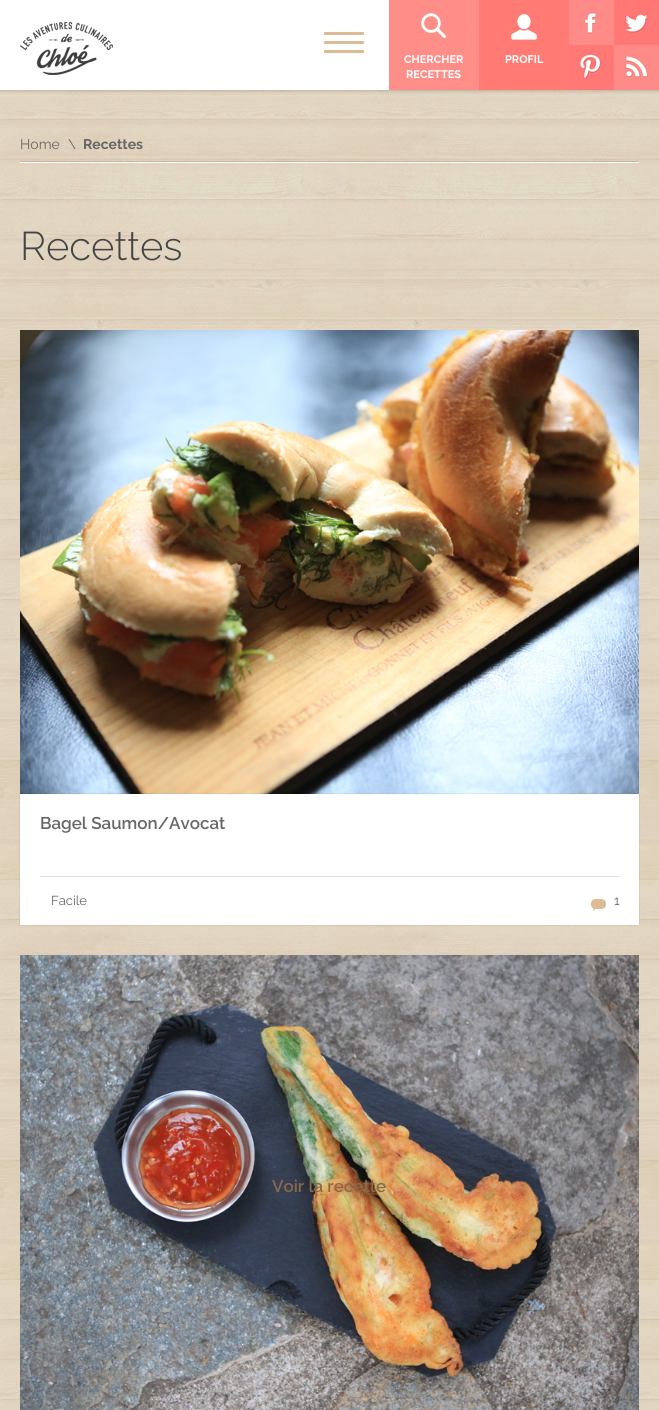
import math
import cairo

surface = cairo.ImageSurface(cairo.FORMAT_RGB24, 659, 1410)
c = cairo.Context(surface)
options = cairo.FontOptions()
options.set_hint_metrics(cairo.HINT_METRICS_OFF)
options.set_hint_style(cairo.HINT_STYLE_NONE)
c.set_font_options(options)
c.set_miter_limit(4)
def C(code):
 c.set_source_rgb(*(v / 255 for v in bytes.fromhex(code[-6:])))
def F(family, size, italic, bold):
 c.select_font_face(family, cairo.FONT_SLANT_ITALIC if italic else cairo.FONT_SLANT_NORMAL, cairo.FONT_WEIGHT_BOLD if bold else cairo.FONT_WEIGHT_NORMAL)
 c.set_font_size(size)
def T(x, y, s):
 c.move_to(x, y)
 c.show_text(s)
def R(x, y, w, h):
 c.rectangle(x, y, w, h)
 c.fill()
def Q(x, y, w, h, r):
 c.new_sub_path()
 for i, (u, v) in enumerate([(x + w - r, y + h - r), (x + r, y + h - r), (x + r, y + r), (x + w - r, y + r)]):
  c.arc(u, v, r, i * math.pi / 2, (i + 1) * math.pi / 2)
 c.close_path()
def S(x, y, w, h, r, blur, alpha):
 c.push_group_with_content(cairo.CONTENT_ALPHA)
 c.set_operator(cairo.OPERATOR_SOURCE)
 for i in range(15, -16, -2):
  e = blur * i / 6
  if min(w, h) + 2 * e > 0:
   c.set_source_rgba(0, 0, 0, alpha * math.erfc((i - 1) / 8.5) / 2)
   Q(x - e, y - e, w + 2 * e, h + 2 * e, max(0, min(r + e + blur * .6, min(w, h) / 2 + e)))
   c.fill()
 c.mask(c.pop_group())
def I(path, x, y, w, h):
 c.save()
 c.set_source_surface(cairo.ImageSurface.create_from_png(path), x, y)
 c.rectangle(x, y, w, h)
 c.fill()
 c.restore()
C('ffffff')
c.paint()
I('1.png',0,90,659,1320)
C('000000')
S(0,1,659,90,0,2,.2)
C('ffffff')
R(0,0,389,90)
I('2.png',20,22,93,53)
C('dbbc94')
Q(324,32,40,3,1)
c.fill()
Q(324,41,40,3,1)
c.fill()
Q(324,50,40,3,1)
c.fill()
C('ff8e88')
R(389,0,90,90)
I('3.png',421,13,25,25)
F('Raleway',11,0,1)
C('ffffff')
T(404,63,'CHERCHER')
T(406,78,'RECETTES')
C('ff7b74')
R(479,0,90,90)
I('4.png',511,14,26,26)
C('ffffff')
T(505,63,'PROFIL')
I('5.png',569,0,90,90)
R(20,162,619,1)
c.set_source_rgba(0,0,0,0.15)
R(20,161,619,1)
F('Raleway',14,0,0)
C('666666')
T(20,149,'Home')
T(68,149,'\\')
F('Raleway',14,0,1)
T(83,149,'Recettes')
F('Raleway Light',40,0,0)
C('444444')
T(20,260,'Recettes')
I('6.png',20,330,619,464)
C('000000')
S(20,794,619,131,0,.5,.2)
C('ffffff')
R(20,794,619,131)
F('Raleway SemiBold',17,0,0)
C('666666')
T(40,829,'Bagel Saumon/Avocat')
C('dddddd')
R(40,876,579,1)
F('Raleway',13,0,0)
C('666666')
T(51,905,'Facile')
I('7.png',591,899,15,12)
T(614,905,'1')
I('8.png',20,955,619,455)
F('Raleway SemiBold',17,0,0)
C('89694c')
T(272,1192,'Voir la recette')
surface.write_to_png('o.png')
